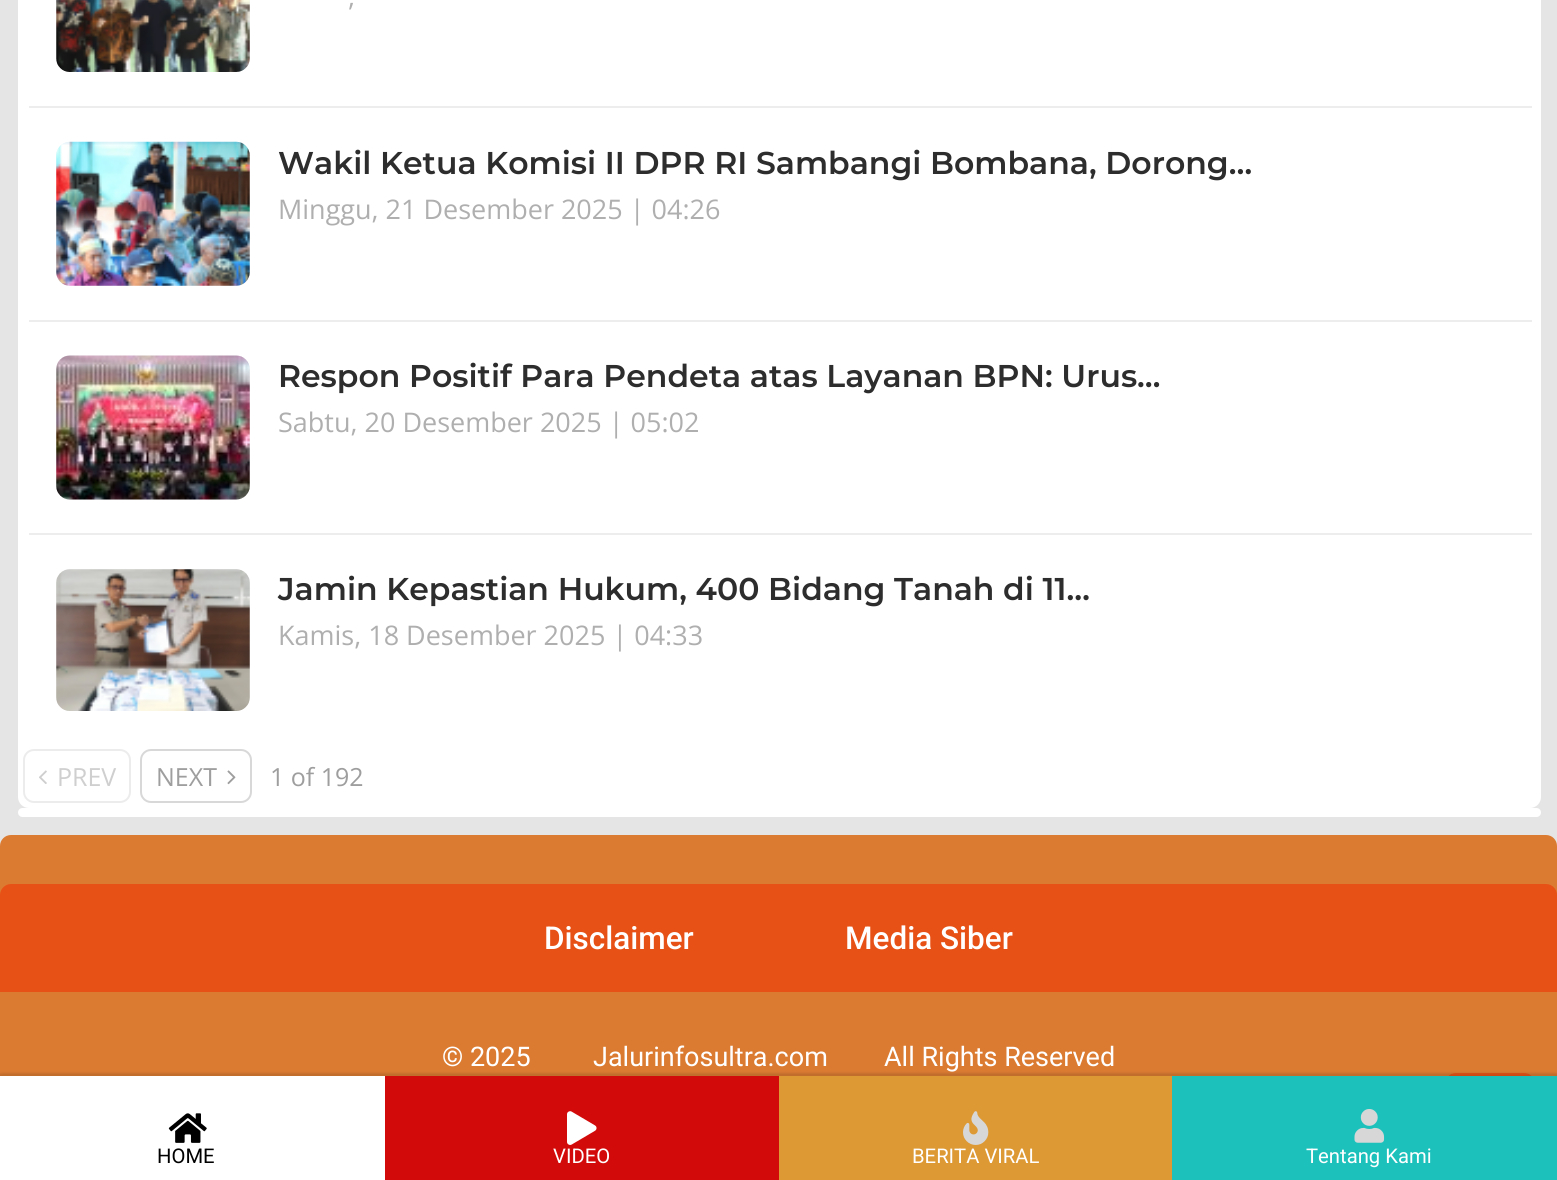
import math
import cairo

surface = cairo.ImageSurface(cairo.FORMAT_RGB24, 1557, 1180)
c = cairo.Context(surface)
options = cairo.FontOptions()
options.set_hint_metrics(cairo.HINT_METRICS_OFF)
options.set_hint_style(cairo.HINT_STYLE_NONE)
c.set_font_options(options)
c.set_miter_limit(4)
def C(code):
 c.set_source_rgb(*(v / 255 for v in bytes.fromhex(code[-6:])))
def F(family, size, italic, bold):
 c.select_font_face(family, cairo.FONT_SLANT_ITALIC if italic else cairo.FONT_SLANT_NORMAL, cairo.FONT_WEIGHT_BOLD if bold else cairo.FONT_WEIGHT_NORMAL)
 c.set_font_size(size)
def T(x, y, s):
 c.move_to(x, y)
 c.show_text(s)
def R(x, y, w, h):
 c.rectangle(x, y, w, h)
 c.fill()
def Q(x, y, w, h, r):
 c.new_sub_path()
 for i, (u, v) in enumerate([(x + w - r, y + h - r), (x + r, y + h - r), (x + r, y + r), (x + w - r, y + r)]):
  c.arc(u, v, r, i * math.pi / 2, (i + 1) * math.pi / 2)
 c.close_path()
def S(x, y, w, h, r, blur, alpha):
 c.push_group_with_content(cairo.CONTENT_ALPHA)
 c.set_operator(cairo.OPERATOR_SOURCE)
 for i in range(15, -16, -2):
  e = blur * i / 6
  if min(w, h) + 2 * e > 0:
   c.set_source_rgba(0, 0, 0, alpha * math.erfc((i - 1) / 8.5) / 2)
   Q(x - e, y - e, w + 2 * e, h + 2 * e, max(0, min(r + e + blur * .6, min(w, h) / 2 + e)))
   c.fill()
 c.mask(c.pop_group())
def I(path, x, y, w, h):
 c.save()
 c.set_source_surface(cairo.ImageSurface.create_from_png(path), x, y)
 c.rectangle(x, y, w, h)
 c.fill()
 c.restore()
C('e5e5e5')
c.paint()
C('ffffff')
Q(18,-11,1523,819,11)
c.fill()
C('ededed')
R(29,106,1503,2)
C('f5f5f5')
Q(56,-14,194,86,14)
c.fill()
I('1.png',56,0,194,72)
F('Open Sans',27,0,0)
C('afafaf')
T(348,6,',')
C('ededed')
R(29,320,1503,2)
C('f5f5f5')
Q(56,142,194,144,14)
c.fill()
I('2.png',56,141,194,145)
F('Montserrat SemiBold',31.5,0,0)
C('2d2d2d')
T(278,174,'Wakil Ketua Komisi II DPR RI Sambangi Bombana, Dorong…')
F('Open Sans',27,0,0)
C('afafaf')
T(278,219,'Minggu, 21 Desember 2025 | 04:26')
C('ededed')
R(29,533,1503,2)
C('f5f5f5')
Q(56,356,194,144,14)
c.fill()
I('3.png',56,355,194,145)
F('Montserrat SemiBold',31.5,0,0)
C('2d2d2d')
T(278,387,'Respon Positif Para Pendeta atas Layanan BPN: Urus…')
F('Open Sans',27,0,0)
C('afafaf')
T(278,432,'Sabtu, 20 Desember 2025 | 05:02')
C('f5f5f5')
Q(56,569,194,142,14)
c.fill()
I('4.png',56,569,194,142)
F('Montserrat SemiBold',31.5,0,0)
C('2d2d2d')
T(278,600,'Jamin Kepastian Hukum, 400 Bidang Tanah di 11…')
F('Open Sans',27,0,0)
C('afafaf')
T(278,645,'Kamis, 18 Desember 2025 | 04:33')
Q(24,750,106,52,10)
C('ececec')
c.stroke()
I('5.png',39,770,8,14)
F('Open Sans',25,0,0)
C('cfcfcf')
T(57,786,'PREV')
Q(141,750,110,52,10)
C('d8d8d8')
c.stroke()
C('9e9e9e')
T(156,786,'NEXT')
I('6.png',227,770,9,15)
T(270,786,'1 of 192')
C('ffffff')
Q(18,808,1523,9,4.5)
c.fill()
C('db7b32')
Q(0,835,1557,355,11)
c.fill()
C('e85115')
c.new_path()
c.move_to(11,884)
c.line_to(1546,884)
c.curve_to(1552,884,1557,889,1557,895)
c.line_to(1557,992)
c.line_to(0,992)
c.line_to(0,895)
c.curve_to(0,889,5,884,11,884)
c.close_path()
c.fill()
F('Roboto Medium',31.5,0,0)
C('ffffff')
T(544,949,'Disclaimer')
T(845,949,'Media Siber')
F('Roboto',27,0,0)
T(442,1066,'© 2025')
T(593,1066,'Jalurinfosultra.com')
T(884,1066,'All Rights Reserved')
C('e75518')
Q(1445,1073,90,90,11)
c.fill()
C('000000')
S(-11,1073,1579,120,14,1,.12)
C('ffffff')
R(0,1076,385,104)
I('7.png',168,1113,39,30)
F('Roboto',20.25,0,0)
C('000000')
T(157,1163,'HOME')
C('d30a0a')
R(385,1076,394,104)
I('8.png',567,1111,30,34)
C('ffffff')
T(553,1163,'VIDEO')
C('dd9933')
R(779,1076,393,104)
I('9.png',963,1111,26,34)
C('ffffff')
T(912,1163,'BERITA VIRAL')
C('1dc1bc')
R(1172,1076,385,104)
I('10.png',1354,1109,31,34)
C('ffffff')
T(1306,1163,'Tentang Kami')
surface.write_to_png('o.png')
